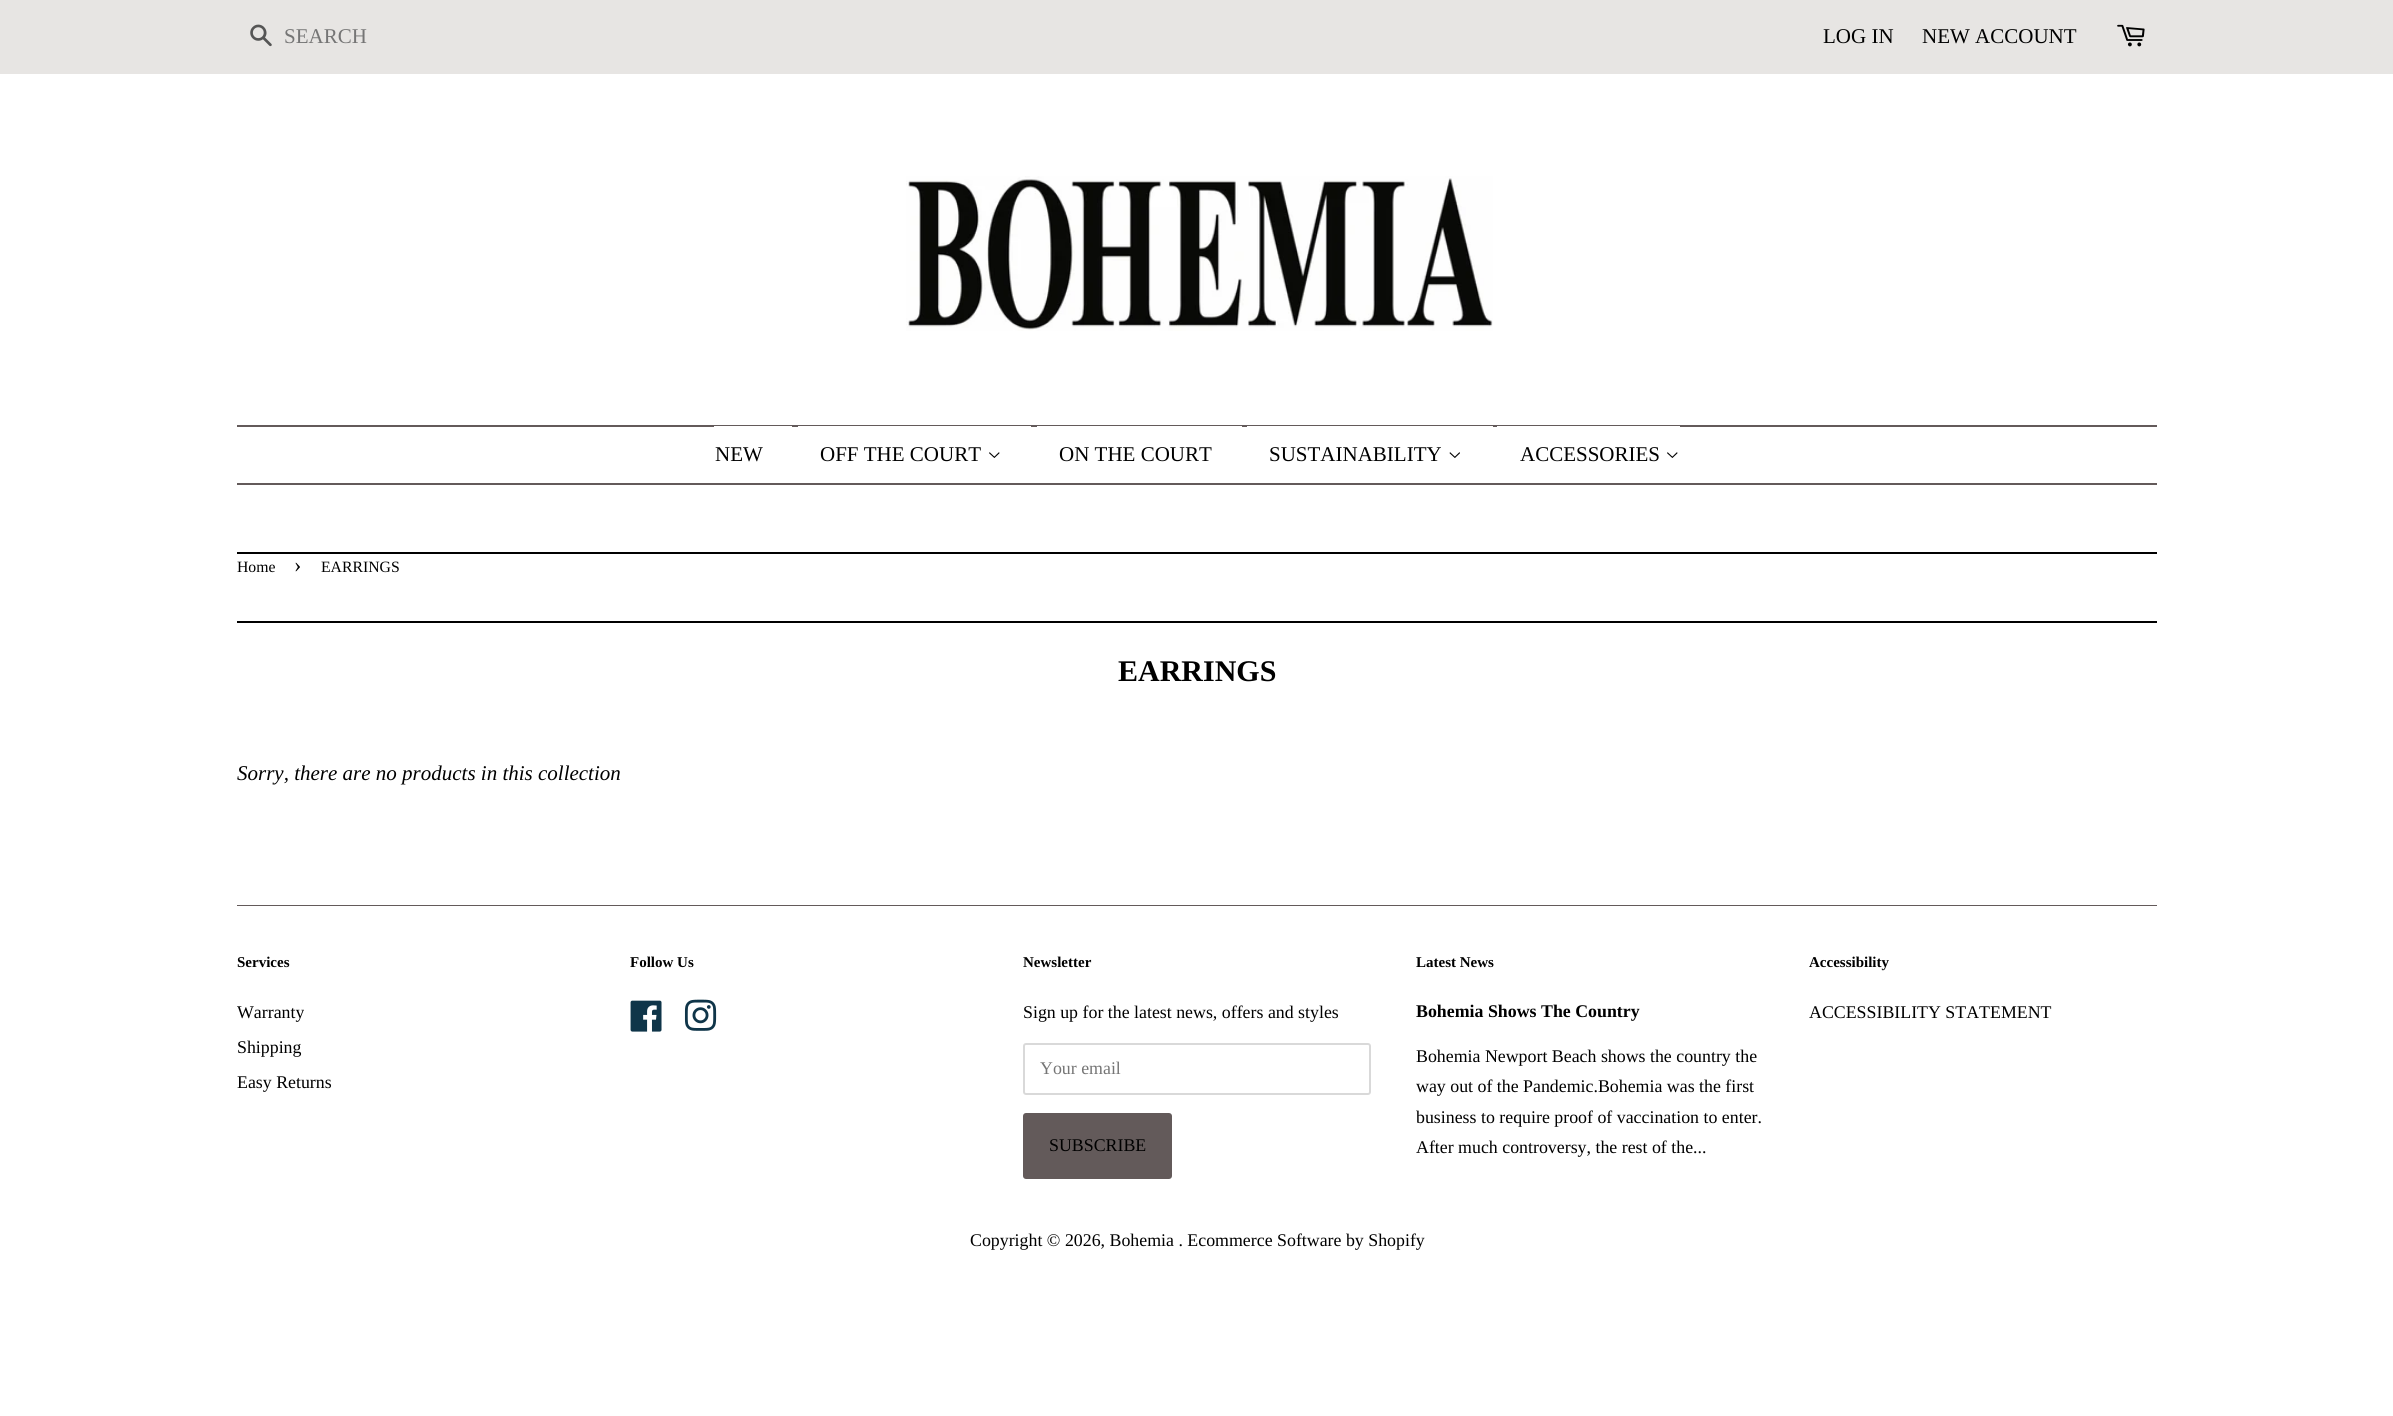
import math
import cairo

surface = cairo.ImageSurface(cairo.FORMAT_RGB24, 2393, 1416)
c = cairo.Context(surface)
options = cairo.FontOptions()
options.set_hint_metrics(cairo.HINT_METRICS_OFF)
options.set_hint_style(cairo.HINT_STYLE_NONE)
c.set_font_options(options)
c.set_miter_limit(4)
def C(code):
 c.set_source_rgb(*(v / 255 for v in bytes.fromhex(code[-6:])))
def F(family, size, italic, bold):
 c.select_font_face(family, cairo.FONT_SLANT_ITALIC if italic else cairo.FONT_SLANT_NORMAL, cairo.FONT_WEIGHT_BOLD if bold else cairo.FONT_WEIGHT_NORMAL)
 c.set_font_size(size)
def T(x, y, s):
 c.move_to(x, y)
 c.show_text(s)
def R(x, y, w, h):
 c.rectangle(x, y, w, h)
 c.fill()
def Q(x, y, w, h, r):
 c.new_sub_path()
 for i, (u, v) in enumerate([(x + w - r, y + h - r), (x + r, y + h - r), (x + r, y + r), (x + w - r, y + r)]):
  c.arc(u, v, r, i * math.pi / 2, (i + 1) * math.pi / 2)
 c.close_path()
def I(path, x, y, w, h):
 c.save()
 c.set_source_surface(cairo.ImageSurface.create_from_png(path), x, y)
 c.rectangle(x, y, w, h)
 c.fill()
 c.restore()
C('ffffff')
c.paint()
C('e7e5e3')
R(0,0,2393,74)
I('1.png',250,24,22,23)
F('Liberation Serif',21,0,0)
C('757575')
T(284,43,'SEARCH')
C('000000')
T(1823,43,'LOG IN')
T(1922,43,'NEW ACCOUNT')
I('2.png',2117,24,28,23)
I('3.png',906,176,587,155)
C('635a5a')
R(237,425,1920,2)
R(237,483,1920,2)
C('ffffff')
R(714,426,78,1)
C('000000')
T(715,461,'NEW')
C('ffffff')
R(798,426,233,1)
C('000000')
T(820,461,'OFF THE COURT')
I('4.png',989,452,11,6)
C('ffffff')
R(1037,426,205,1)
C('000000')
T(1059,461,'ON THE COURT')
C('ffffff')
R(1247,426,246,1)
C('000000')
T(1269,461,'SUSTAINABILITY')
I('5.png',1449,452,11,6)
C('ffffff')
R(1497,426,183,1)
C('000000')
T(1520,461,'ACCESSORIES')
I('4.png',1667,452,11,6)
R(237,552,1920,2)
F('Liberation Serif',15.75,0,0)
T(237,572,'Home')
F('Liberation Serif',22,0,0)
T(294,572,'›')
F('Liberation Serif',15.75,0,0)
T(321,572,'EARRINGS')
R(237,621,1920,2)
F('Liberation Serif',30,0,1)
T(1118,681,'EARRINGS')
F('Liberation Serif',21,1,0)
T(237,780,'Sorry, there are no products in this collection')
C('635a5a')
R(237,905,1920,1)
F('Liberation Serif',15,0,1)
C('000000')
T(237,967,'Services')
F('Liberation Serif',17.85,0,0)
T(237,1018,'Warranty')
T(237,1053,'Shipping')
T(237,1088,'Easy Returns')
F('Liberation Serif',15,0,1)
T(630,967,'Follow Us')
I('6.png',630,1000,32,32)
I('7.png',684,999,33,32)
T(1023,967,'Newsletter')
F('Liberation Serif',17.85,0,0)
T(1023,1018,'Sign up for the latest news, offers and styles')
Q(1024,1044,346,50,2)
C('d9d9d9')
c.stroke()
C('757575')
T(1040,1074,'Your email')
C('635a5a')
Q(1023,1113,149,66,3)
c.fill()
C('000000')
T(1049,1151,'SUBSCRIBE')
F('Liberation Serif',15,0,1)
T(1416,967,'Latest News')
F('Liberation Serif',17.85,0,1)
T(1416,1017,'Bohemia Shows The Country')
F('Liberation Serif',17.85,0,0)
T(1416,1062,'Bohemia Newport Beach shows the country the')
T(1416,1092,'way out of the Pandemic.Bohemia was the first')
T(1416,1123,'business to require proof of vaccination to enter.')
T(1416,1153,'After much controversy, the rest of the...')
F('Liberation Serif',15,0,1)
T(1809,967,'Accessibility')
F('Liberation Serif',17.85,0,0)
T(1809,1018,'ACCESSIBILITY STATEMENT')
T(970,1246,'Copyright © 2026, Bohemia . Ecommerce Software by Shopify')
surface.write_to_png('o.png')
